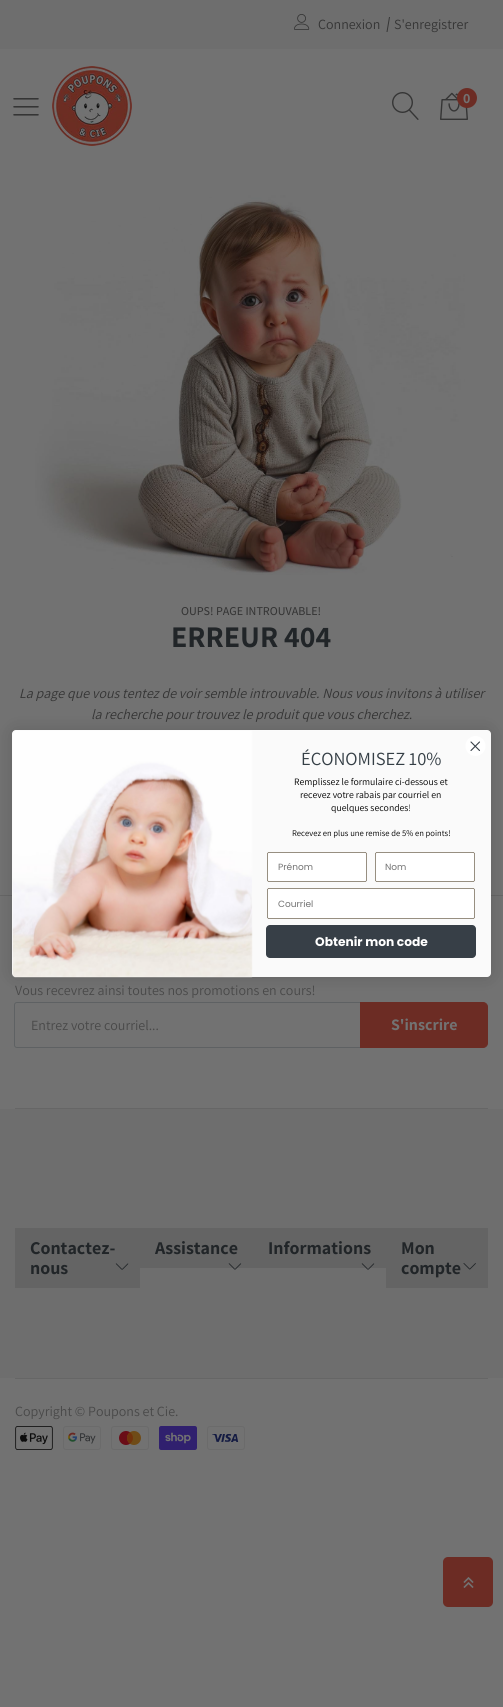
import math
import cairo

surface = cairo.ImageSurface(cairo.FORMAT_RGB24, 503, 1707)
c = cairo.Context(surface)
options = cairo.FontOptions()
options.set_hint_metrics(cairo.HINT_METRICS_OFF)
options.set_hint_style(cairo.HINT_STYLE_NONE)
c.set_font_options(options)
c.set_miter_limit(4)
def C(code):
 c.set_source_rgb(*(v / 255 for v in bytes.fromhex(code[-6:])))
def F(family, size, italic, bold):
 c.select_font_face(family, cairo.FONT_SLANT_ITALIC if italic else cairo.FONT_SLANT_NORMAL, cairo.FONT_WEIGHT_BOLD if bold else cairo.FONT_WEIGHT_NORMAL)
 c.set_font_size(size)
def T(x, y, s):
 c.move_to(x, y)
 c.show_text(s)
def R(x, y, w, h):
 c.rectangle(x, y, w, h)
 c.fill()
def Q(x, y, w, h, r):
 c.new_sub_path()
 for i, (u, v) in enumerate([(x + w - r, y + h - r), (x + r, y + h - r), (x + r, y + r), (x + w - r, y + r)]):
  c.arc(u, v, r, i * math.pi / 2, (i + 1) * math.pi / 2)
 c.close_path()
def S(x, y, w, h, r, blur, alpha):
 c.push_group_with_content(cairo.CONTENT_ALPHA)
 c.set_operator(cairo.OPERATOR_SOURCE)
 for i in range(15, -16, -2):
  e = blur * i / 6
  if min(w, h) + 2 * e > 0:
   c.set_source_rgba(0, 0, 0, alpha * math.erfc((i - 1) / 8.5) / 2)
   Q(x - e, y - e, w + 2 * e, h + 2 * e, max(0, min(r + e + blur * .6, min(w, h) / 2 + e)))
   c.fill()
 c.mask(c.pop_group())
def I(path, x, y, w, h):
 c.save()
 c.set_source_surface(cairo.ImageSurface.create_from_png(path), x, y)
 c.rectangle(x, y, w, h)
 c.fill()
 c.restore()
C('727272')
c.paint()
C('6e6e6e')
R(0,0,503,49)
I('1.png',294,14,16,16)
F('Assistant',14,0,0)
C('353535')
T(318,29,'Connexion')
c.new_path()
c.move_to(389,17)
c.line_to(390,17)
c.line_to(387.5,32)
c.line_to(386.5,32)
c.close_path()
c.fill()
T(394,29,'S\'enregistrer')
I('2.png',13,98,26,18)
I('3.png',52,66,80,80)
I('4.png',392,92,27,28)
I('5.png',440,92,28,28)
C('6c2c24')
c.arc(467,98,10,0,2 * math.pi)
c.fill()
F('Assistant',14,0,1)
C('727272')
T(463,103,'0')
I('6.png',35,195,430,380)
F('Assistant Medium',12,0,0)
C('353535')
T(181,615,'OUPS! PAGE INTROUVABLE!')
F('Assistant',30,0,1)
C('212528')
T(171,647,'ERREUR 404')
F('Assistant',14,1,0)
C('353535')
T(19,698,'La page que vous tentez de voir semble introuvable. Nous vous invitons à utiliser')
T(91,719,'la recherche pour trouvez le produit que vous cherchez.')
C('666666')
R(0,895,503,1)
c.new_path()
c.move_to(17,1002.5)
c.line_to(360.5,1002.5)
c.line_to(360.5,1047.5)
c.line_to(17,1047.5)
c.curve_to(15.5,1047.5,14.5,1046.5,14.5,1045)
c.line_to(14.5,1005)
c.curve_to(14.5,1003.5,15.5,1002.5,17,1002.5)
c.close_path()
C('5e6163')
c.set_line_width(1)
c.stroke()
C('6c2c24')
c.new_path()
c.move_to(360.5,1002.5)
c.line_to(483,1002.5)
c.curve_to(485.5,1002.5,487.5,1004.5,487.5,1007)
c.line_to(487.5,1043)
c.curve_to(487.5,1045.5,485.5,1047.5,483,1047.5)
c.line_to(360.5,1047.5)
c.close_path()
c.fill_preserve()
c.stroke()
C('000000')
S(12,730,479,247,4,9,.15)
C('fafafa')
Q(12,730,479,247,4)
c.fill()
C('ffffff')
c.arc(475.5,746,10,0,2 * math.pi)
c.fill()
c.new_path()
c.move_to(471,742)
c.line_to(479.5,750.5)
c.move_to(471,750.5)
c.line_to(479.5,742)
c.close_path()
C('373f47')
c.set_line_width(1.1)
c.set_line_cap(cairo.LINE_CAP_ROUND)
c.set_line_join(cairo.LINE_JOIN_ROUND)
c.stroke()
I('7.png',12,730,241,248)
F('Assistant',18.5,0,0)
C('343e45')
T(301,765,'ÉCONOMISEZ 10%')
F('Assistant',9.75,0,0)
C('000000')
T(294,785,'Remplissez le formulaire ci-dessous et')
T(300,798,'recevez votre rabais par courriel en')
T(331,811,'quelques secondes!')
F('Assistant',8.6,0,0)
T(292,836,'Recevez en plus une remise de 5% en points!')
C('ffffff')
Q(267.3,852.3,99.4,29.4,2.2)
c.fill_preserve()
C('54462f')
c.set_line_width(.6)
c.set_line_cap(cairo.LINE_CAP_BUTT)
c.set_line_join(cairo.LINE_JOIN_MITER)
c.stroke()
F('Poppins',9,0,0)
C('727272')
T(278,870,'Prénom')
C('ffffff')
Q(375.3,852.3,99.4,29.4,2.2)
c.fill_preserve()
C('54462f')
c.stroke()
C('727272')
T(385,870,'Nom')
C('ffffff')
Q(267.3,888.3,207.4,30.4,2.2)
c.fill_preserve()
C('54462f')
c.stroke()
C('727272')
T(278,907,'Courriel')
C('373f47')
Q(266,925,210,33,4)
c.fill()
F('Poppins',12.25,0,1)
C('ffffff')
T(315,946,'Obtenir mon code')
C('666666')
R(15,1108,473,1)
F('Assistant',14,0,0)
C('494949')
T(15,995,'Vous recevrez ainsi toutes nos promotions en cours!')
T(31,1030,'Entrez votre courriel...')
F('Assistant',16,0,1)
C('727272')
T(391,1030,'S\'inscrire')
C('6e6e6e')
R(0,1109,503,269)
C('646464')
R(15,1228,125,60)
F('Assistant',18,0,1)
C('212528')
T(30,1254,'Contactez-')
T(30,1274,'nous')
I('8.png',115,1263,14,7)
C('646464')
R(140,1228,246,40)
C('212528')
T(155,1254,'Assistance')
I('9.png',228,1263,14,7)
T(268,1254,'Informations')
I('10.png',361,1263,14,7)
C('646464')
R(386,1228,102,60)
C('212528')
T(401,1254,'Mon')
T(401,1274,'compte')
I('11.png',463,1263,13,7)
C('666666')
R(15,1378,473,1)
F('Assistant',14,0,0)
C('494949')
T(15,1416,'Copyright © Poupons et Cie.')
I('12.png',15,1426,38,24)
I('13.png',63,1426,38,24)
I('14.png',111,1426,38,24)
I('15.png',159,1426,38,24)
I('16.png',207,1426,38,24)
C('6c2c24')
Q(443,1557,50,50,5)
c.fill()
I('17.png',463,1577,11,11)
surface.write_to_png('o.png')
